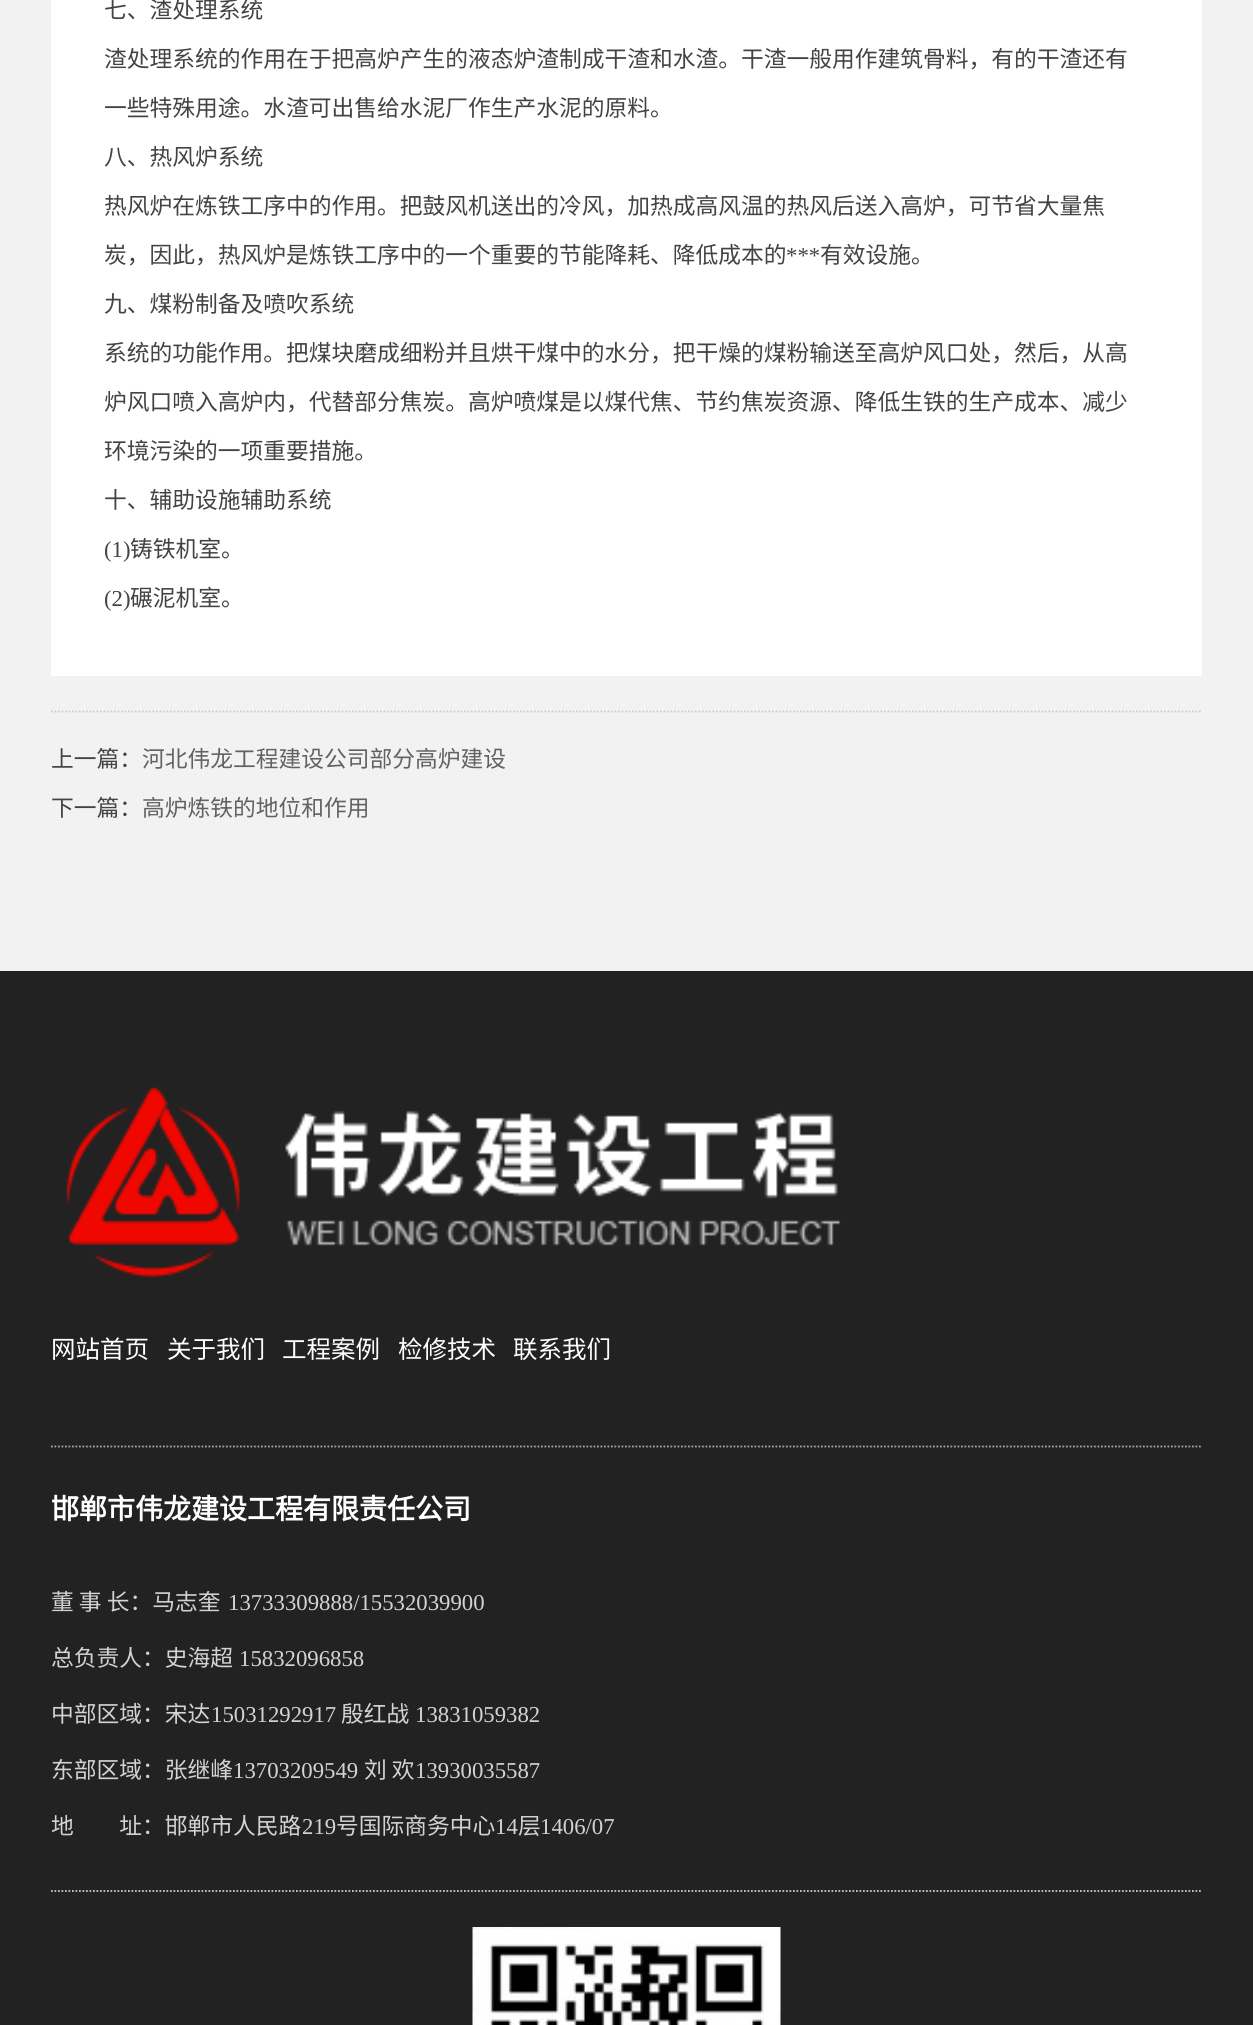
import math
import cairo

surface = cairo.ImageSurface(cairo.FORMAT_RGB24, 1253, 2025)
c = cairo.Context(surface)
options = cairo.FontOptions()
options.set_hint_metrics(cairo.HINT_METRICS_OFF)
options.set_hint_style(cairo.HINT_STYLE_NONE)
c.set_font_options(options)
c.set_miter_limit(4)
def C(code):
 c.set_source_rgb(*(v / 255 for v in bytes.fromhex(code[-6:])))
def F(family, size, italic, bold):
 c.select_font_face(family, cairo.FONT_SLANT_ITALIC if italic else cairo.FONT_SLANT_NORMAL, cairo.FONT_WEIGHT_BOLD if bold else cairo.FONT_WEIGHT_NORMAL)
 c.set_font_size(size)
def T(x, y, s):
 c.move_to(x, y)
 c.show_text(s)
def R(x, y, w, h):
 c.rectangle(x, y, w, h)
 c.fill()
def I(path, x, y, w, h):
 c.save()
 c.set_source_surface(cairo.ImageSurface.create_from_png(path), x, y)
 c.rectangle(x, y, w, h)
 c.fill()
 c.restore()
C('f2f2f2')
c.paint()
C('ffffff')
R(51,0,1151,676)
F('Noto Sans CJK SC',22.75,0,0)
C('434343')
T(104,18,'七、渣处理系统')
T(104,67,'渣处理系统的作用在于把高炉产生的液态炉渣制成干渣和水渣。干渣一般用作建筑骨料，有的干渣还有')
T(104,116,'一些特殊用途。水渣可出售给水泥厂作生产水泥的原料。')
T(104,165,'八、热风炉系统')
T(104,214,'热风炉在炼铁工序中的作用。把鼓风机送出的冷风，加热成高风温的热风后送入高炉，可节省大量焦')
T(104,263,'炭，因此，热风炉是炼铁工序中的一个重要的节能降耗、降低成本的')
F('Liberation Serif',22.75,0,0)
T(786,263,'***')
F('Noto Sans CJK SC',22.75,0,0)
T(820,263,'有效设施。')
T(104,312,'九、煤粉制备及喷吹系统')
T(104,361,'系统的功能作用。把煤块磨成细粉并且烘干煤中的水分，把干燥的煤粉输送至高炉风口处，然后，从高')
T(104,410,'炉风口喷入高炉内，代替部分焦炭。高炉喷煤是以煤代焦、节约焦炭资源、降低生铁的生产成本、减少')
T(104,459,'环境污染的一项重要措施。')
T(104,508,'十、辅助设施辅助系统')
F('Liberation Serif',22.75,0,0)
T(104,557,'(1)')
F('Noto Sans CJK SC',22.75,0,0)
T(130,557,'铸铁机室。')
F('Liberation Serif',22.75,0,0)
T(104,606,'(2)')
F('Noto Sans CJK SC',22.75,0,0)
T(130,606,'碾泥机室。')
c.new_path()
c.move_to(51,711.5)
c.line_to(1202,711.5)
C('cccccc')
c.set_line_width(1.8)
c.set_dash([1.75,1.75])
c.stroke()
C('434343')
T(51,767,'上一篇：')
C('626262')
T(142,767,'河北伟龙工程建设公司部分高炉建设')
C('434343')
T(51,816,'下一篇：')
C('626262')
T(142,816,'高炉炼铁的地位和作用')
C('222222')
R(0,971,1253,1054)
I('1.png',66,1087,775,191)
F('Noto Sans CJK SC',24.5,0,0)
C('ffffff')
T(51,1358,'网站首页')
T(167,1358,'关于我们')
T(282,1358,'工程案例')
T(398,1358,'检修技术')
T(513,1358,'联系我们')
c.new_path()
c.move_to(51,1446.5)
c.line_to(1202,1446.5)
C('aaaaaa')
c.stroke()
c.new_path()
c.move_to(51,1891)
c.line_to(1202,1891)
C('cccccc')
c.stroke()
F('Noto Sans CJK SC',28,0,1)
C('ffffff')
T(51,1519,'邯郸市伟龙建设工程有限责任公司')
F('Noto Sans CJK SC',22.75,0,0)
C('d3d3d3')
T(51,1610,'董 事 长：马志奎')
F('Liberation Serif',22.75,0,0)
T(228,1610,'13733309888/15532039900')
F('Noto Sans CJK SC',22.75,0,0)
T(51,1666,'总负责人：史海超')
F('Liberation Serif',22.75,0,0)
T(239,1666,'15832096858')
F('Noto Sans CJK SC',22.75,0,0)
T(51,1722,'中部区域：宋达')
F('Liberation Serif',22.75,0,0)
T(211,1722,'15031292917')
F('Noto Sans CJK SC',22.75,0,0)
T(341,1722,'殷红战')
F('Liberation Serif',22.75,0,0)
T(415,1722,'13831059382')
F('Noto Sans CJK SC',22.75,0,0)
T(51,1778,'东部区域：张继峰')
F('Liberation Serif',22.75,0,0)
T(233,1778,'13703209549')
F('Noto Sans CJK SC',22.75,0,0)
T(364,1778,'刘 欢')
F('Liberation Serif',22.75,0,0)
T(415,1778,'13930035587')
F('Noto Sans CJK SC',22.75,0,0)
T(51,1834,'地　　址：邯郸市人民路')
F('Liberation Serif',22.75,0,0)
T(302,1834,'219')
F('Noto Sans CJK SC',22.75,0,0)
T(336,1834,'号国际商务中心')
F('Liberation Serif',22.75,0,0)
T(495,1834,'14')
F('Noto Sans CJK SC',22.75,0,0)
T(518,1834,'层')
F('Liberation Serif',22.75,0,0)
T(540,1834,'1406/07')
I('2.png',472,1927,309,98)
surface.write_to_png('o.png')
